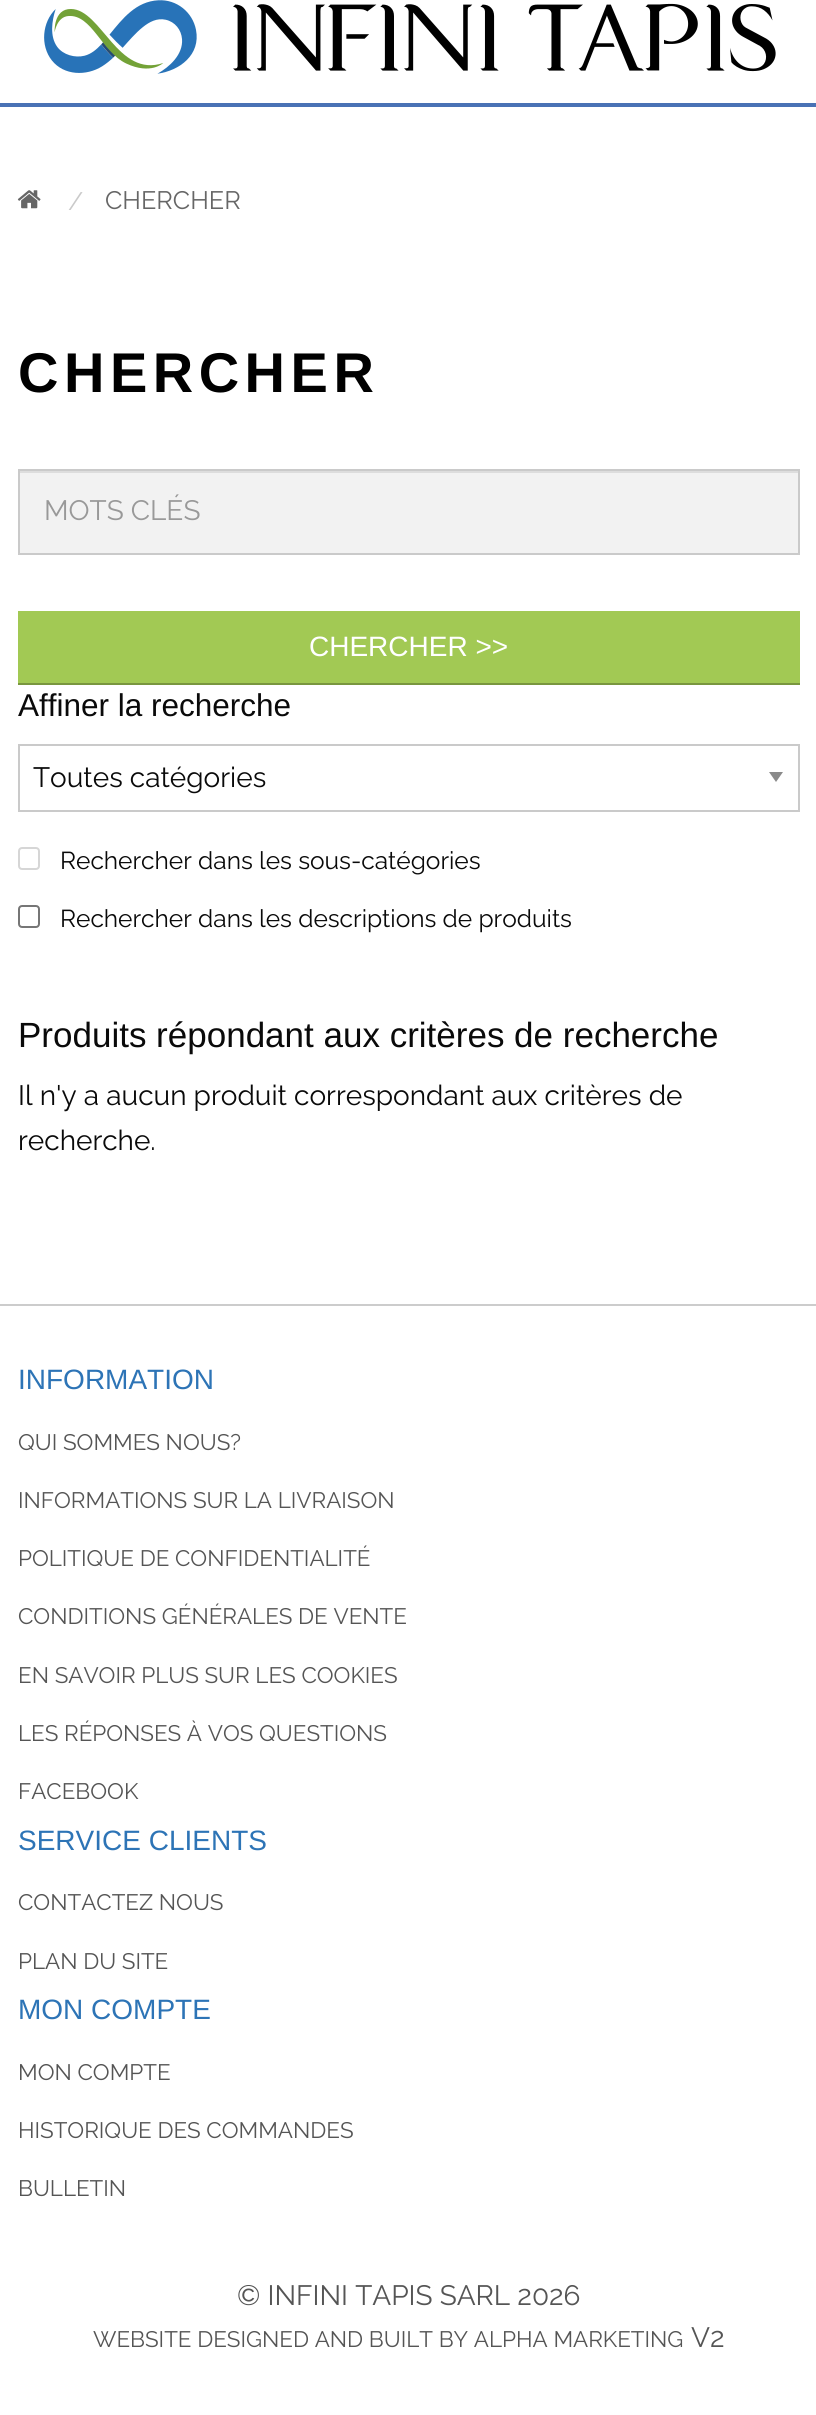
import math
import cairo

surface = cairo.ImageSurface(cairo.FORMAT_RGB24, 816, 2415)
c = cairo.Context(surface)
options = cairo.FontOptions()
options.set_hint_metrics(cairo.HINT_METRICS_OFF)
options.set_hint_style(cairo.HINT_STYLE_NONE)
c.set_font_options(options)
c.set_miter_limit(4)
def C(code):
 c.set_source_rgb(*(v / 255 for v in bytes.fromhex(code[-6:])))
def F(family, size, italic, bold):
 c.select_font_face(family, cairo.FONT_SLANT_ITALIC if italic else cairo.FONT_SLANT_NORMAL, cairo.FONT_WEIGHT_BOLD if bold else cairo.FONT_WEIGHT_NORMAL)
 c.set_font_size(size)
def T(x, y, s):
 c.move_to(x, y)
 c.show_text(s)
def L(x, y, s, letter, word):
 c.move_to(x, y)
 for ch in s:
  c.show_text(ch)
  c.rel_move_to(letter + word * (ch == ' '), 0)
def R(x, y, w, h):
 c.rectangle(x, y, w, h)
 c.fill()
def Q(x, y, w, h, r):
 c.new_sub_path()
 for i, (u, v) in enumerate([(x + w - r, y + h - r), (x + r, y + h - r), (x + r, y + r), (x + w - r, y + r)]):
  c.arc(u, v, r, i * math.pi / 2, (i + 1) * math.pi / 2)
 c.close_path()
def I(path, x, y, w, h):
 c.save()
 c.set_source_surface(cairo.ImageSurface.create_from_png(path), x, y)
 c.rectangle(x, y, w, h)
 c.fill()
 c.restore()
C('ffffff')
c.paint()
C('4972b5')
R(0,103,816,4)
I('1.png',44,0,732,74)
I('2.png',17,190,24,19)
F('Raleway',25.25,0,0)
C('cacaca')
T(68,210,'/')
C('666666')
T(105,209,'CHERCHER')
F('Liberation Sans',56,0,1)
C('000000')
L(18,392,'CHERCHER',5.5,0)
C('f2f2f2')
R(20,473,778,80)
C('dddddd')
R(19,471,779,2)
c.rectangle(19,470,780,84)
C('cacaca')
c.stroke()
F('Raleway',28,0,0)
C('999999')
T(44,520,'MOTS CLÉS')
C('a2c954')
R(18,611,782,72)
C('79963f')
R(18,683,782,2)
F('Liberation Sans',28,0,0)
C('ffffff')
T(309,656,'CHERCHER >>')
F('Liberation Sans',31.5,0,0)
C('0a0a0a')
T(18,716,'Affiner la recherche')
C('8a8a8a')
c.new_path()
c.move_to(769,772)
c.line_to(783,772)
c.line_to(776,782)
c.close_path()
c.fill()
c.rectangle(19,745,780,66)
C('cacaca')
c.stroke()
F('Raleway',28,0,0)
C('0a0a0a')
T(33,787,'Toutes catégories')
Q(19,848,20,21,3)
C('d6d6d6')
c.stroke()
F('Raleway',24.5,0,0)
C('0a0a0a')
T(60,869,'Rechercher dans les sous-catégories')
Q(19,906,20,21,3)
C('767676')
c.stroke()
C('0a0a0a')
T(60,927,'Rechercher dans les descriptions de produits')
F('Liberation Sans',35,0,0)
T(18,1047,'Produits répondant aux critères de recherche')
F('Raleway',28,0,0)
T(18,1105,'Il n\'y a aucun produit correspondant aux critères de')
T(18,1150,'recherche.')
C('cccccc')
R(0,1304,816,2)
F('Liberation Sans',28,0,0)
C('2d74b6')
T(18,1389,'INFORMATION')
F('Raleway',22.4,0,0)
C('555555')
T(18,1450,'QUI SOMMES NOUS?')
T(18,1508,'INFORMATIONS SUR LA LIVRAISON')
T(18,1566,'POLITIQUE DE CONFIDENTIALITÉ')
T(18,1624,'CONDITIONS GÉNÉRALES DE VENTE')
T(18,1683,'EN SAVOIR PLUS SUR LES COOKIES')
T(18,1741,'LES RÉPONSES À VOS QUESTIONS')
T(18,1799,'FACEBOOK')
F('Liberation Sans',28,0,0)
C('2d74b6')
T(18,1850,'SERVICE CLIENTS')
F('Raleway',22.4,0,0)
C('555555')
T(18,1910,'CONTACTEZ NOUS')
T(18,1969,'PLAN DU SITE')
F('Liberation Sans',28,0,0)
C('2d74b6')
T(18,2019,'MON COMPTE')
F('Raleway',22.4,0,0)
C('555555')
T(18,2080,'MON COMPTE')
T(18,2138,'HISTORIQUE DES COMMANDES')
T(18,2196,'BULLETIN')
F('Raleway',28,0,0)
T(237,2305,'© INFINI TAPIS SARL 2026')
F('Raleway',22.4,0,0)
T(93,2347,'WEBSITE DESIGNED AND BUILT BY ALPHA MARKETING')
F('Raleway',28,0,0)
T(691,2347,'V2')
surface.write_to_png('o.png')
